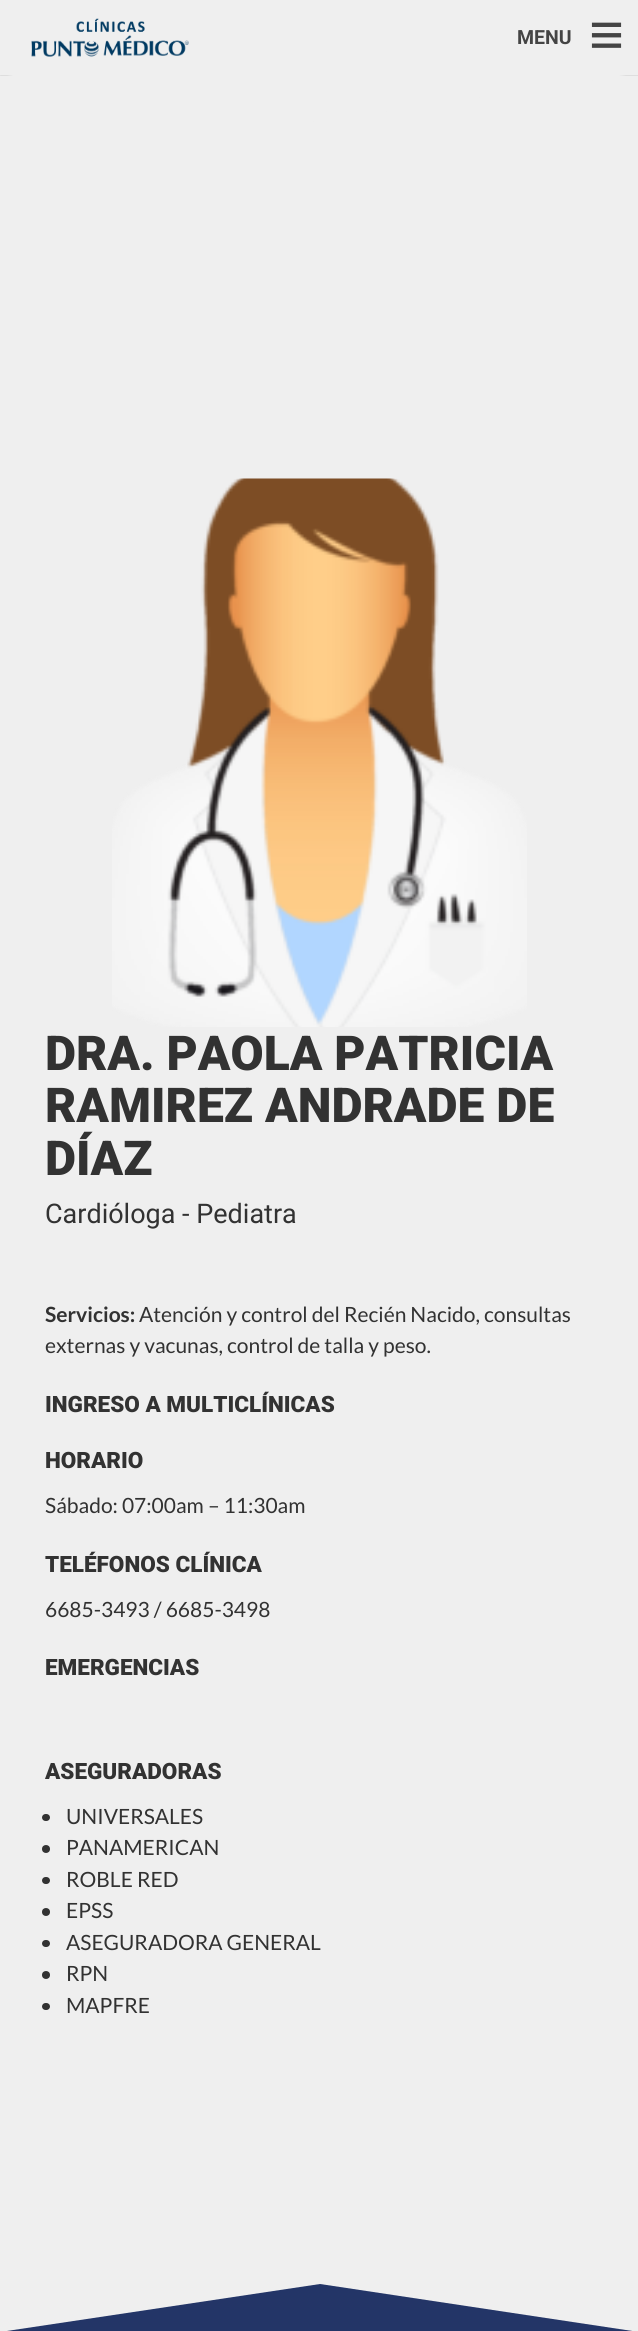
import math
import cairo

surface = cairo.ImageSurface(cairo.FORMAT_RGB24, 638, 2331)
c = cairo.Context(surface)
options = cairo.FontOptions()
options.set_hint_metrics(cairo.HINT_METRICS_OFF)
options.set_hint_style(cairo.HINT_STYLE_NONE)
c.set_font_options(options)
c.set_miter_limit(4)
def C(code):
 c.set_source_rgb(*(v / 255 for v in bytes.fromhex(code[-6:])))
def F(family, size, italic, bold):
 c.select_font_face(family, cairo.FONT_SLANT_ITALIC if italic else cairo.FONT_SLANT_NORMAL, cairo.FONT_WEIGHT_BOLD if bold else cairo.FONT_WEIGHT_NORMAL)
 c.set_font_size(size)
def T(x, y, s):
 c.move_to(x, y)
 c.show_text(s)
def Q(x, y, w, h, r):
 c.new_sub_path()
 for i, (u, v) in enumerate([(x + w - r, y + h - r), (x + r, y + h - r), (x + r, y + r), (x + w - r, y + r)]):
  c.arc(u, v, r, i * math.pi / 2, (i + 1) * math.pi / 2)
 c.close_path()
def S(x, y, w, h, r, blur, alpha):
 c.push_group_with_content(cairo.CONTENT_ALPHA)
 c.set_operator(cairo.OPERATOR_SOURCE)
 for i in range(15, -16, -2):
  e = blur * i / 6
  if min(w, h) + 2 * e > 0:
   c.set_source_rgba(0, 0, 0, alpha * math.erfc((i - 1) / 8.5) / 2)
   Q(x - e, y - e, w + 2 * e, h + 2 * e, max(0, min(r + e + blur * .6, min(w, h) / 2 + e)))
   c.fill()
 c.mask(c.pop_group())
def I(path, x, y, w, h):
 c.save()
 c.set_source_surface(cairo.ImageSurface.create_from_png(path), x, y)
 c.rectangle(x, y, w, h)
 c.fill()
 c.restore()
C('efefef')
c.paint()
c.save()
c.rectangle(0,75,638,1)
c.clip()
C('000000')
S(0,0,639,75,0,1,.2)
c.restore()
I('1.png',31,18,158,39)
F('Roboto',19.5,0,1)
C('444444')
T(517,44,'MENU')
F('Liberation Sans',60,0,1)
T(589,55,'≡')
C('efefef')
c.new_path()
c.move_to(0,74)
c.line_to(320,74)
c.line_to(320,122)
c.close_path()
c.fill()
c.new_path()
c.move_to(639,73)
c.line_to(320,73)
c.line_to(320,121)
c.close_path()
c.fill()
I('2.png',112,478,415,549)
F('Roboto Black',48,0,0)
C('323232')
T(45,1070,'DRA. PAOLA PATRICIA')
T(45,1122,'RAMIREZ ANDRADE DE')
T(45,1175,'DÍAZ')
F('Roboto',27,0,0)
T(45,1223,'Cardióloga - Pediatra')
F('Lato',21,0,1)
T(45,1322,'Servicios:')
F('Lato',21,0,0)
T(139,1322,'Atención y control del Recién Nacido, consultas')
T(45,1353,'externas y vacunas, control de talla y peso.')
F('Roboto Black',22.5,0,0)
T(45,1412,'INGRESO A MULTICLÍNICAS')
T(45,1468,'HORARIO')
F('Lato',21,0,0)
T(45,1513,'Sábado: 07:00am – 11:30am')
F('Roboto Black',22.5,0,0)
T(45,1572,'TELÉFONOS CLÍNICA')
F('Lato',21,0,0)
T(45,1617,'6685-3493 / 6685-3498')
F('Roboto Black',22.5,0,0)
T(45,1675,'EMERGENCIAS')
T(45,1779,'ASEGURADORAS')
Q(42,1814,8,7,3.5)
c.fill()
F('Lato',21,0,0)
T(66,1824,'UNIVERSALES')
c.new_path()
c.arc(46,1849,4,0,2 * math.pi)
c.fill()
T(66,1855,'PANAMERICAN')
Q(42,1877,8,7,3.5)
c.fill()
T(66,1887,'ROBLE RED')
c.new_path()
c.arc(46,1912,4,0,2 * math.pi)
c.fill()
T(66,1918,'EPSS')
Q(42,1940,8,7,3.5)
c.fill()
T(66,1950,'ASEGURADORA GENERAL')
c.new_path()
c.arc(46,1975,4,0,2 * math.pi)
c.fill()
T(66,1981,'RPN')
Q(42,2003,8,7,3.5)
c.fill()
T(66,2013,'MAPFRE')
C('233567')
c.new_path()
c.move_to(320,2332)
c.line_to(320,2284)
c.line_to(0,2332)
c.close_path()
c.fill()
c.new_path()
c.move_to(320,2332)
c.line_to(320,2284)
c.line_to(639,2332)
c.close_path()
c.fill()
surface.write_to_png('o.png')
